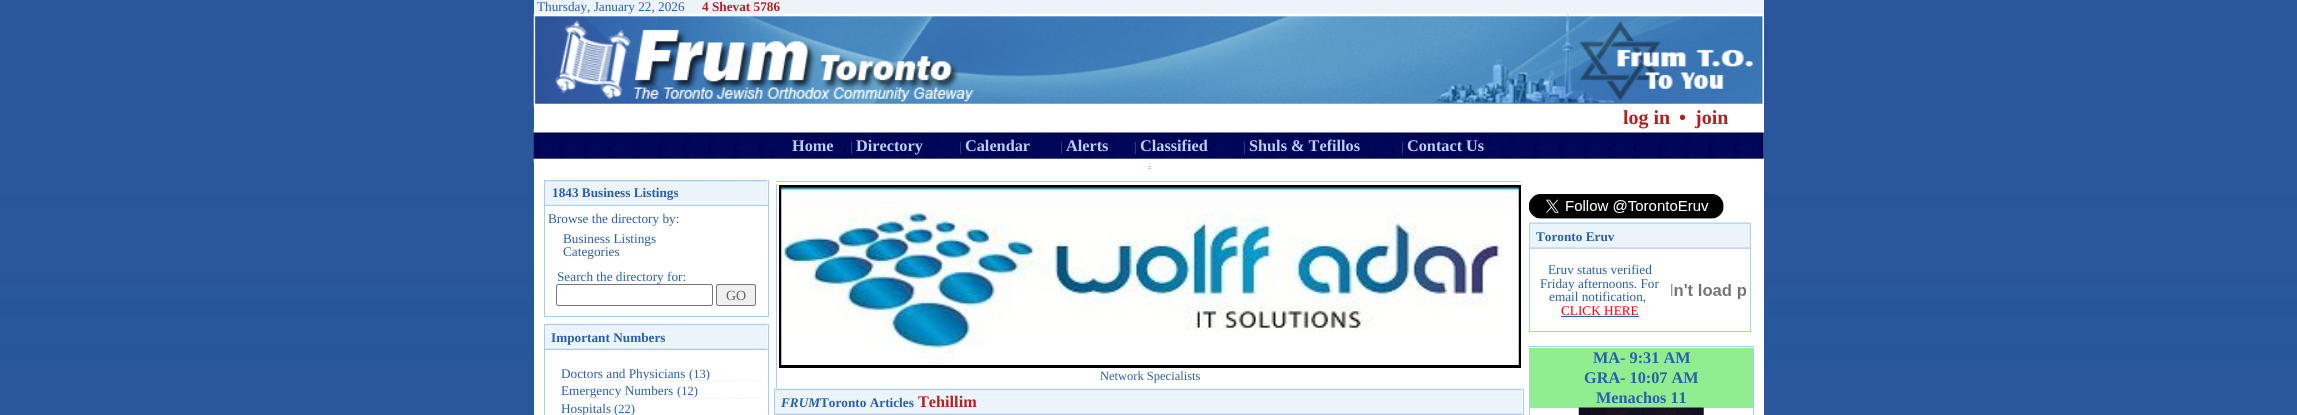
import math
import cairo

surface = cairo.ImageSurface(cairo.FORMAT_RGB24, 2297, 415)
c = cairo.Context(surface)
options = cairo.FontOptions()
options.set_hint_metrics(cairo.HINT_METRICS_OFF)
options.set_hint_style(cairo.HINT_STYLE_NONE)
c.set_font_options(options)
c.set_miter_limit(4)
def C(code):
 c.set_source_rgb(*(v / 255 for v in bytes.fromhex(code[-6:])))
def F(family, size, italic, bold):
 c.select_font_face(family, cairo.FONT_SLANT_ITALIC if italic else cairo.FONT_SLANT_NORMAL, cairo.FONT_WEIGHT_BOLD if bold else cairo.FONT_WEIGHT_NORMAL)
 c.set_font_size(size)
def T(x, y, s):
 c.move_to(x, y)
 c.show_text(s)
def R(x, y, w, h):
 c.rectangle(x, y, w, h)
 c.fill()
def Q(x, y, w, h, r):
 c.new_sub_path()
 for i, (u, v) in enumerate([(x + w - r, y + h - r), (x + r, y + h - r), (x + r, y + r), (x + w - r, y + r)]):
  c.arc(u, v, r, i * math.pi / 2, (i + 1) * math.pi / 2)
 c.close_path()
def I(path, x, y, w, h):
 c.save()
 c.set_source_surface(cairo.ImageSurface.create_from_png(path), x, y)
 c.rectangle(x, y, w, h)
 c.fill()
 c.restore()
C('ffffff')
c.paint()
I('1.png',0,0,2297,415)
C('ffffff')
R(534,14,1230,401)
C('ecf3fb')
R(534,0,1230,14)
F('Liberation Serif',13.25,0,0)
C('2a5faa')
T(537,11,'Thursday, January 22, 2026')
F('Liberation Serif',13.25,0,1)
C('b22222')
T(702,11,'4 Shevat 5786')
I('2.png',533,13,1231,94)
I('3.png',533,128,1231,35)
F('Liberation Serif',20,0,1)
T(1623,124,'log in')
T(1679,124,'•')
T(1695,124,'join')
I('4.png',769,147,77,11)
F('Liberation Serif',16.25,0,1)
C('bbcefa')
T(792,151,'Home')
I('5.png',850,147,102,11)
F('Liberation Serif',13.25,0,0)
C('2a5faa')
T(850,151,'|')
F('Liberation Serif',16.25,0,1)
C('bbcefa')
T(856,151,'Directory')
F('Liberation Serif',13.25,0,0)
C('2a5faa')
T(959,151,'|')
F('Liberation Serif',16.25,0,1)
C('bbcefa')
T(965,151,'Calendar')
I('6.png',1084,147,26,11)
F('Liberation Serif',13.25,0,0)
C('2a5faa')
T(1060,151,'|')
F('Liberation Serif',16.25,0,1)
C('bbcefa')
T(1066,151,'Alerts')
F('Liberation Serif',13.25,0,0)
C('2a5faa')
T(1134,151,'|')
F('Liberation Serif',16.25,0,1)
C('bbcefa')
T(1140,151,'Classified')
I('7.png',1243,147,152,11)
F('Liberation Serif',13.25,0,0)
C('2a5faa')
T(1243,151,'|')
F('Liberation Serif',16.25,0,1)
C('bbcefa')
T(1249,151,'Shuls & Tefillos')
I('8.png',1402,147,126,11)
F('Liberation Serif',13.25,0,0)
C('2a5faa')
T(1401,151,'|')
F('Liberation Serif',16.25,0,1)
C('bbcefa')
T(1407,151,'Contact Us')
C('aaccee')
R(1148,166,3,1)
R(1148,168,3,1)
R(544,180,1,136)
I('9.png',545,180,223,25)
F('Liberation Serif',13.25,0,1)
C('2a5faa')
T(552,197,'1843 Business Listings')
C('aaccee')
R(768,180,1,25)
R(545,205,224,1)
F('Liberation Serif',13.25,0,0)
C('2a5faa')
T(548,223,'Browse the directory by:')
C('aaccee')
R(768,206,1,110)
C('2a5faa')
T(563,243,'Business Listings')
T(563,256,'Categories')
T(557,281,'Search the directory for:')
Q(556.5,284.5,156,21,2)
C('767676')
c.set_line_width(1)
c.stroke()
C('efefef')
Q(716.5,284.5,39,21,2)
c.fill_preserve()
C('767676')
c.stroke()
F('Liberation Serif',14,0,0)
C('666666')
T(726,300,'GO')
C('aaccee')
R(544,316,225,1)
R(544,324,1,91)
I('10.png',545,323,223,27)
F('Liberation Serif',13.25,0,1)
C('2a5faa')
T(551,342,'Important Numbers')
C('aaccee')
R(768,324,1,91)
F('Liberation Serif',13.25,0,0)
C('2a5faa')
T(561,378,'Doctors and Physicians')
F('Liberation Serif',12.5,0,0)
T(689,378,'(13)')
I('11.png',562,380,200,2)
F('Liberation Serif',13.25,0,0)
T(561,395,'Emergency Numbers')
F('Liberation Serif',12.5,0,0)
T(677,395,'(12)')
I('12.png',562,397,199,2)
F('Liberation Serif',13.25,0,0)
T(561,413,'Hospitals')
F('Liberation Serif',12.5,0,0)
T(614,413,'(22)')
C('aaccee')
R(776,181,745,1)
R(776,184,1,204)
C('000000')
R(779,185,742,183)
I('13.png',781,187,738,178)
C('2a5faa')
T(1100,380,'Network Specialists')
C('aaccee')
R(774,389,1,26)
I('14.png',775,388,748,27)
F('Liberation Serif',13.25,1,1)
C('2a5faa')
T(781,407,'FRUM')
F('Liberation Serif',13.25,0,1)
T(820,407,'Toronto Articles')
F('Liberation Serif',16.25,0,1)
C('b22222')
T(918,407,'Tehillim')
C('aaccee')
R(1523,389,1,26)
I('15.png',1529,194,195,25)
R(1529,223,1,108)
I('16.png',1530,222,220,27)
F('Liberation Serif',13.25,0,1)
C('2a5faa')
T(1536,241,'Toronto Eruv')
C('aaccee')
R(1750,223,1,108)
F('Liberation Serif',13.25,0,0)
C('2a5faa')
T(1548,274,'Eruv status verified')
T(1540,288,'Friday afternoons. For')
T(1549,301,'email notification,')
C('ff0000')
T(1561,315,'CLICK HERE')
C('2a5faa')
R(1561,316,78,1)
I('17.png',1671,284,76,15)
C('aaccee')
R(1529,331,222,1)
R(1529,346,225,1)
R(1529,348,1,67)
C('90ee90')
R(1530,348,223,60)
F('Liberation Serif',16.25,0,1)
C('2a5faa')
T(1593,363,'MA- 9:31 AM')
T(1584,383,'GRA- 10:07 AM')
T(1596,403,'Menachos 11')
C('aaccee')
R(1753,348,1,67)
I('18.png',1578,407,126,8)
surface.write_to_png('o.png')
